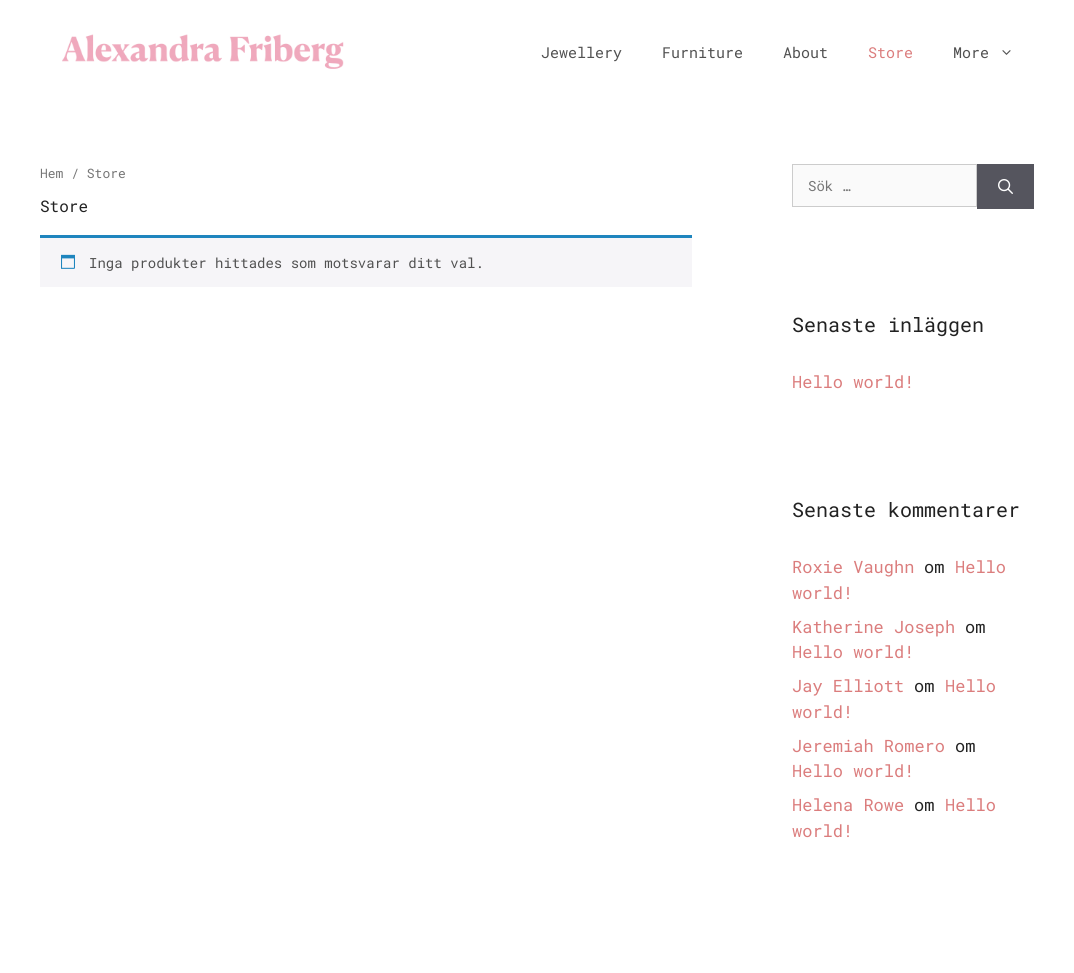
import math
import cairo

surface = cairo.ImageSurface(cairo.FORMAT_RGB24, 1074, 973)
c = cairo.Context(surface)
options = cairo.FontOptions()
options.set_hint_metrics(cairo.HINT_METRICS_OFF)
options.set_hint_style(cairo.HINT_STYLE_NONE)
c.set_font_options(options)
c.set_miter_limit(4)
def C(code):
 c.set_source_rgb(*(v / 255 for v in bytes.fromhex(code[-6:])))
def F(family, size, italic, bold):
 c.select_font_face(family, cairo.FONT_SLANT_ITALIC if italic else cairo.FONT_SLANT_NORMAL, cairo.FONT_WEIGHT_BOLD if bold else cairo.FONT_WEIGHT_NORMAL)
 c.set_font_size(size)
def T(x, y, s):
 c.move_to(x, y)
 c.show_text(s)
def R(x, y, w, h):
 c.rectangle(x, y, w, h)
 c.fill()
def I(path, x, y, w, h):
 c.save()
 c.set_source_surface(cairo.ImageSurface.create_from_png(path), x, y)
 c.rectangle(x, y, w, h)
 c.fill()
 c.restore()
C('ffffff')
c.paint()
I('1.png',62,34,282,35)
F('Roboto Mono',15,0,0)
C('515151')
T(541,58,'Jewellery')
T(662,58,'Furniture')
T(783,58,'About')
C('db7d7d')
T(868,58,'Store')
C('515151')
T(953,58,'More')
I('2.png',1002,50,9,5)
F('Roboto Mono',13,0,0)
C('767676')
T(40,178,'Hem / Store')
F('Roboto Mono',16,0,0)
C('222222')
T(40,212,'Store')
C('f6f5f8')
R(40,238,652,49)
C('1e85be')
R(40,235,652,3)
I('3.png',61,254,14,15)
F('Roboto Mono',14,0,0)
C('515151')
T(89,268,'Inga produkter hittades som motsvarar ditt val.')
C('fafafa')
c.rectangle(792.5,164.5,184,42)
c.fill_preserve()
C('cccccc')
c.set_line_width(1)
c.stroke()
C('767676')
T(808,191,'Sök …')
C('55555e')
R(977,164,57,45)
I('4.png',998,179,15,15)
F('Roboto Mono',20,0,0)
C('222222')
T(792,332,'Senaste inläggen')
F('Roboto Mono',17,0,0)
C('db7d7d')
T(792,388,'Hello world!')
F('Roboto Mono',20,0,0)
C('222222')
T(792,517,'Senaste kommentarer')
F('Roboto Mono',17,0,0)
C('db7d7d')
T(792,573,'Roxie Vaughn')
C('222222')
T(924,573,'om')
C('db7d7d')
T(955,573,'Hello')
T(792,599,'world!')
T(792,633,'Katherine Joseph')
C('222222')
T(965,633,'om')
C('db7d7d')
T(792,658,'Hello world!')
T(792,692,'Jay Elliott')
C('222222')
T(914,692,'om')
C('db7d7d')
T(945,692,'Hello')
T(792,718,'world!')
T(792,752,'Jeremiah Romero')
C('222222')
T(955,752,'om')
C('db7d7d')
T(792,777,'Hello world!')
T(792,811,'Helena Rowe')
C('222222')
T(914,811,'om')
C('db7d7d')
T(945,811,'Hello')
T(792,837,'world!')
surface.write_to_png('o.png')
